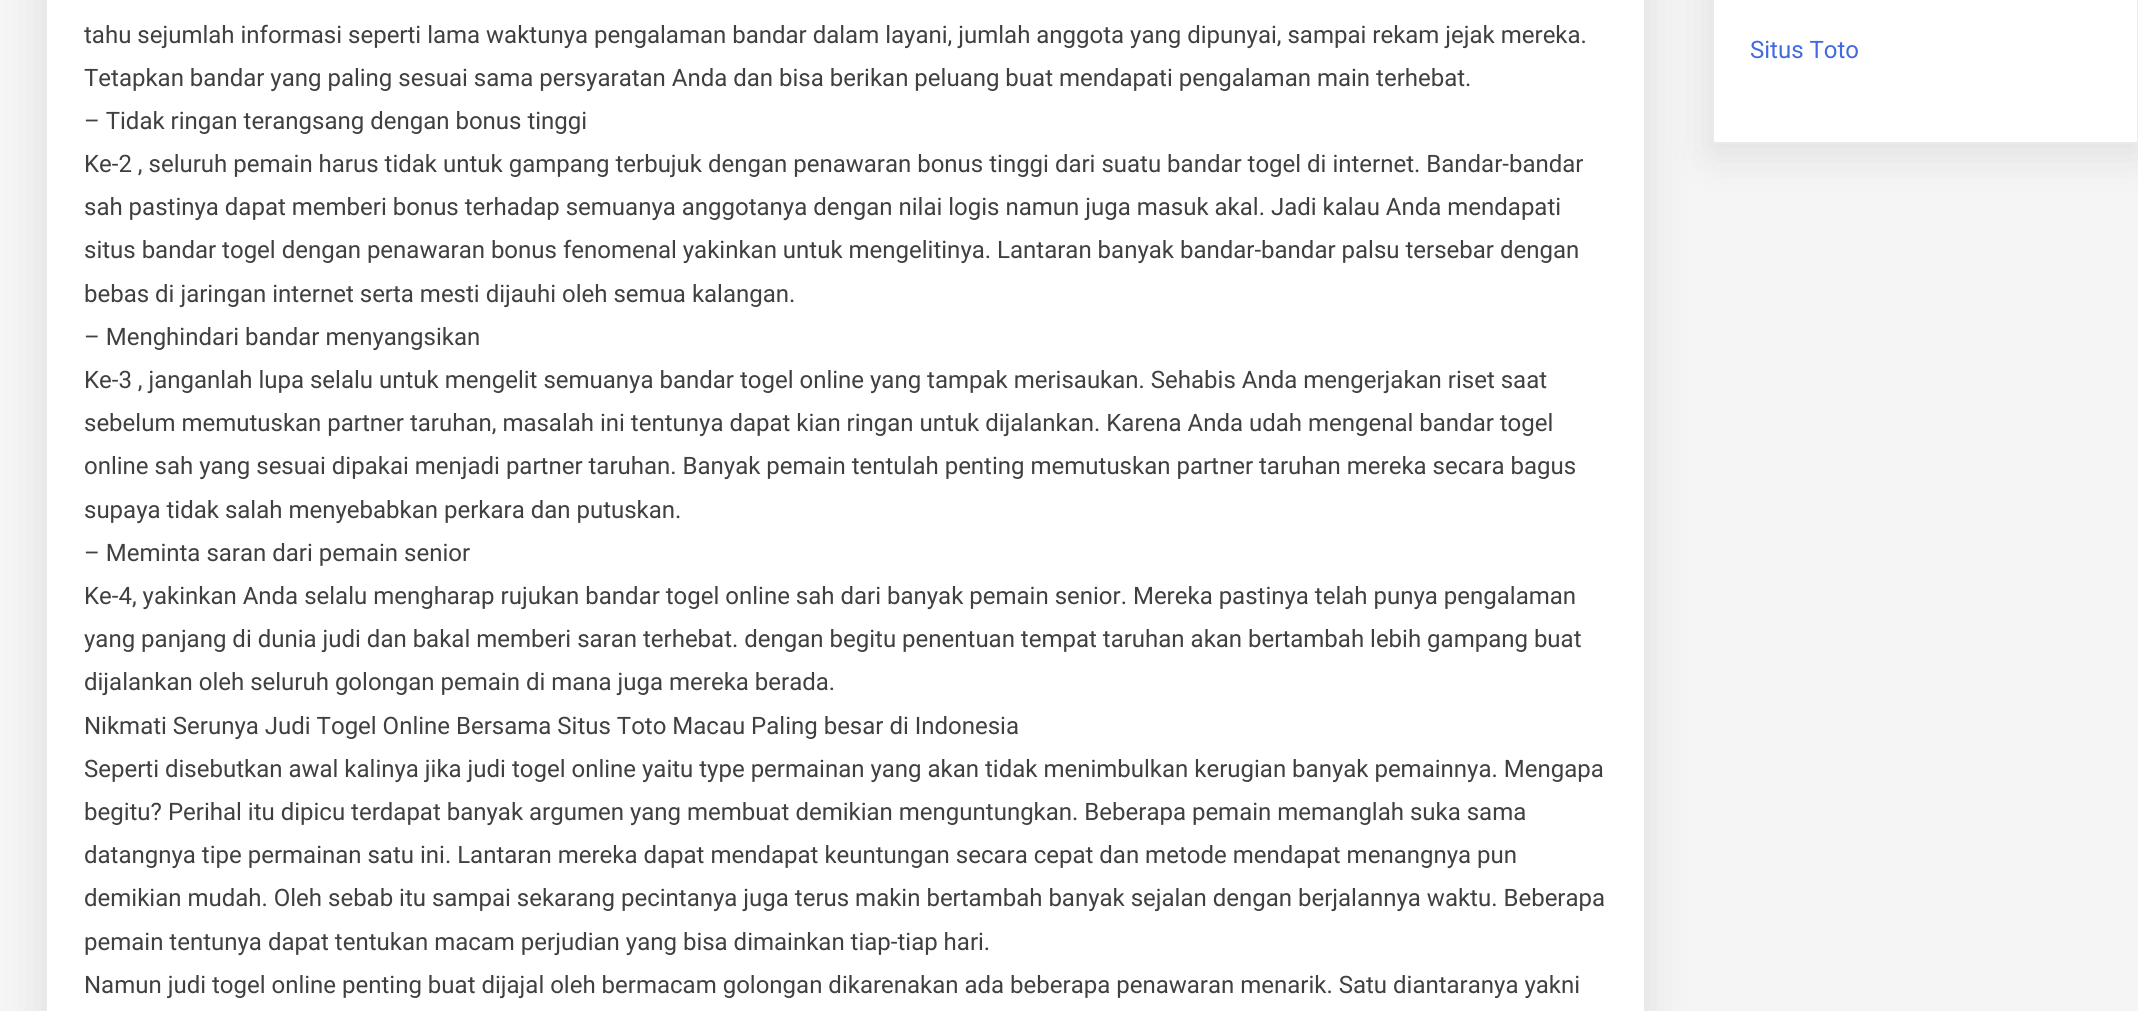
import math
import cairo

surface = cairo.ImageSurface(cairo.FORMAT_RGB24, 2138, 1011)
c = cairo.Context(surface)
options = cairo.FontOptions()
options.set_hint_metrics(cairo.HINT_METRICS_OFF)
options.set_hint_style(cairo.HINT_STYLE_NONE)
c.set_font_options(options)
c.set_miter_limit(4)
def C(code):
 c.set_source_rgb(*(v / 255 for v in bytes.fromhex(code[-6:])))
def F(family, size, italic, bold):
 c.select_font_face(family, cairo.FONT_SLANT_ITALIC if italic else cairo.FONT_SLANT_NORMAL, cairo.FONT_WEIGHT_BOLD if bold else cairo.FONT_WEIGHT_NORMAL)
 c.set_font_size(size)
def T(x, y, s):
 c.move_to(x, y)
 c.show_text(s)
def R(x, y, w, h):
 c.rectangle(x, y, w, h)
 c.fill()
def Q(x, y, w, h, r):
 c.new_sub_path()
 for i, (u, v) in enumerate([(x + w - r, y + h - r), (x + r, y + h - r), (x + r, y + r), (x + w - r, y + r)]):
  c.arc(u, v, r, i * math.pi / 2, (i + 1) * math.pi / 2)
 c.close_path()
def S(x, y, w, h, r, blur, alpha):
 c.push_group_with_content(cairo.CONTENT_ALPHA)
 c.set_operator(cairo.OPERATOR_SOURCE)
 for i in range(15, -16, -2):
  e = blur * i / 6
  if min(w, h) + 2 * e > 0:
   c.set_source_rgba(0, 0, 0, alpha * math.erfc((i - 1) / 8.5) / 2)
   Q(x - e, y - e, w + 2 * e, h + 2 * e, max(0, min(r + e + blur * .6, min(w, h) / 2 + e)))
   c.fill()
 c.mask(c.pop_group())
C('f5f5f5')
c.paint()
C('000000')
S(45,-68,1601,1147,0,22.5,.1)
C('ffffff')
R(47,0,1597,1011)
F('Roboto',24,0,0)
C('404040')
T(84,43,'tahu sejumlah informasi seperti lama waktunya pengalaman bandar dalam layani, jumlah anggota yang dipunyai, sampai rekam jejak mereka.')
T(84,86,'Tetapkan bandar yang paling sesuai sama persyaratan Anda dan bisa berikan peluang buat mendapati pengalaman main terhebat.')
T(84,129,'– Tidak ringan terangsang dengan bonus tinggi')
T(84,172,'Ke-2 , seluruh pemain harus tidak untuk gampang terbujuk dengan penawaran bonus tinggi dari suatu bandar togel di internet. Bandar-bandar')
T(84,215,'sah pastinya dapat memberi bonus terhadap semuanya anggotanya dengan nilai logis namun juga masuk akal. Jadi kalau Anda mendapati')
T(84,258,'situs bandar togel dengan penawaran bonus fenomenal yakinkan untuk mengelitinya. Lantaran banyak bandar-bandar palsu tersebar dengan')
T(84,302,'bebas di jaringan internet serta mesti dijauhi oleh semua kalangan.')
T(84,345,'– Menghindari bandar menyangsikan')
T(84,388,'Ke-3 , janganlah lupa selalu untuk mengelit semuanya bandar togel online yang tampak merisaukan. Sehabis Anda mengerjakan riset saat')
T(84,431,'sebelum memutuskan partner taruhan, masalah ini tentunya dapat kian ringan untuk dijalankan. Karena Anda udah mengenal bandar togel')
T(84,474,'online sah yang sesuai dipakai menjadi partner taruhan. Banyak pemain tentulah penting memutuskan partner taruhan mereka secara bagus')
T(84,518,'supaya tidak salah menyebabkan perkara dan putuskan.')
T(84,561,'– Meminta saran dari pemain senior')
T(84,604,'Ke-4, yakinkan Anda selalu mengharap rujukan bandar togel online sah dari banyak pemain senior. Mereka pastinya telah punya pengalaman')
T(84,647,'yang panjang di dunia judi dan bakal memberi saran terhebat. dengan begitu penentuan tempat taruhan akan bertambah lebih gampang buat')
T(84,690,'dijalankan oleh seluruh golongan pemain di mana juga mereka berada.')
T(84,734,'Nikmati Serunya Judi Togel Online Bersama Situs Toto Macau Paling besar di Indonesia')
T(84,777,'Seperti disebutkan awal kalinya jika judi togel online yaitu type permainan yang akan tidak menimbulkan kerugian banyak pemainnya. Mengapa')
T(84,820,'begitu? Perihal itu dipicu terdapat banyak argumen yang membuat demikian menguntungkan. Beberapa pemain memanglah suka sama')
T(84,863,'datangnya tipe permainan satu ini. Lantaran mereka dapat mendapat keuntungan secara cepat dan metode mendapat menangnya pun')
T(84,906,'demikian mudah. Oleh sebab itu sampai sekarang pecintanya juga terus makin bertambah banyak sejalan dengan berjalannya waktu. Beberapa')
T(84,950,'pemain tentunya dapat tentukan macam perjudian yang bisa dimainkan tiap-tiap hari.')
T(84,993,'Namun judi togel online penting buat dijajal oleh bermacam golongan dikarenakan ada beberapa penawaran menarik. Satu diantaranya yakni')
C('000000')
S(1712,-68,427,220,0,22.5,.1)
C('ffffff')
c.rectangle(1713,-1,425,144)
c.fill_preserve()
C('eaeaea')
c.stroke()
C('4169e1')
T(1750,58,'Situs Toto')
surface.write_to_png('o.png')
